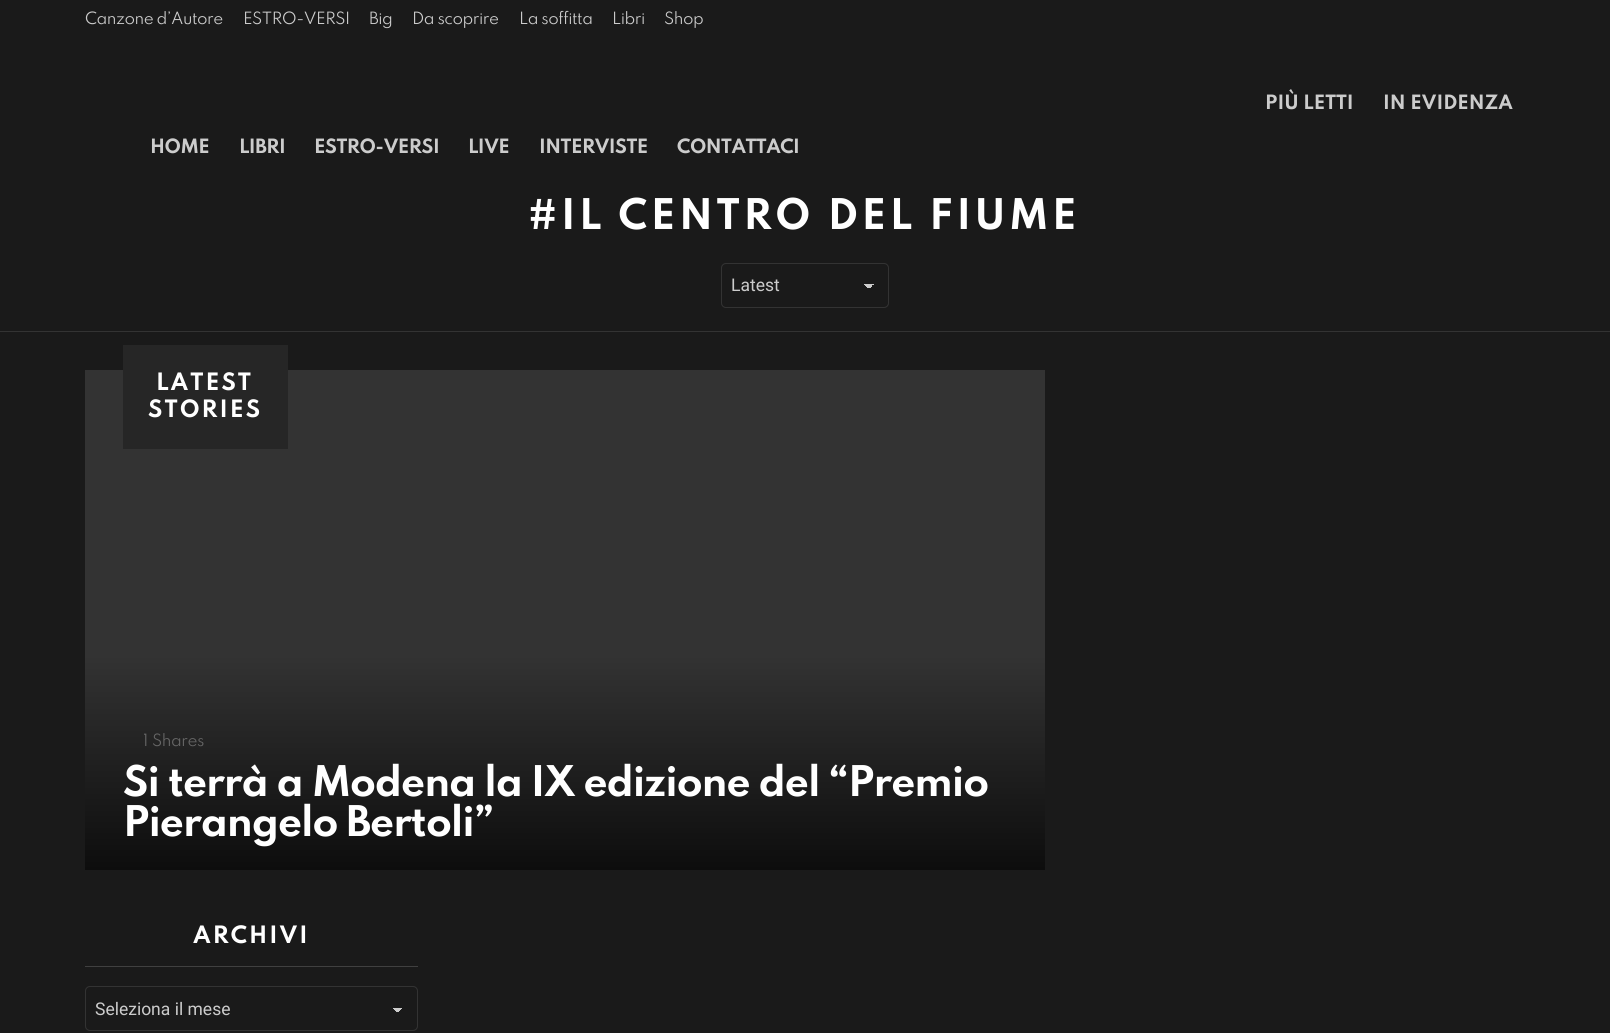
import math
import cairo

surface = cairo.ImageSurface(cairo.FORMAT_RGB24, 1610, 1033)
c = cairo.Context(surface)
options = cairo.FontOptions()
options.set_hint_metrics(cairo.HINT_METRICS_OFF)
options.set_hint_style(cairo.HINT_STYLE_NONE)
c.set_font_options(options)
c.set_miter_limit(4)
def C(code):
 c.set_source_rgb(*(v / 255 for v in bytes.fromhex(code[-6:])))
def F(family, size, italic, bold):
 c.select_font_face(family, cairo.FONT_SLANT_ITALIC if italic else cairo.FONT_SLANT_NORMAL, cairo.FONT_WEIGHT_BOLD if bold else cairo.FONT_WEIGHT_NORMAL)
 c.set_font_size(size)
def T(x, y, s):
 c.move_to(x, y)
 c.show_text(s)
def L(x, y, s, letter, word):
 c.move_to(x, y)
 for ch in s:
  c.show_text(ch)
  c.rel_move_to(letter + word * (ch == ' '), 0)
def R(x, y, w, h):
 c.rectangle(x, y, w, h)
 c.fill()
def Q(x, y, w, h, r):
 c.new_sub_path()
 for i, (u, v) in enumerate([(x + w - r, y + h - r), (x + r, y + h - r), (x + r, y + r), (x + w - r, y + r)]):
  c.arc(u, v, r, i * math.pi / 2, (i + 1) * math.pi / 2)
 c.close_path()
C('1a1a1a')
c.paint()
F('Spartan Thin',15,0,0)
C('cccccc')
L(85,24,'Canzone d’Autore',-.5,0)
L(243,24,'ESTRO-VERSI',-.5,0)
L(369,24,'Big',-.5,0)
L(412,24,'Da scoprire',-.5,0)
L(519,24,'La soffitta',-.5,0)
L(612,24,'Libri',-.5,0)
L(664,24,'Shop',-.5,0)
F('Spartan Thin',17.5,0,1)
T(1265,109,'PIÙ LETTI')
T(1383,109,'IN EVIDENZA')
L(150,153,'HOME',-.5,0)
L(239,153,'LIBRI',-.5,0)
L(314,153,'ESTRO-VERSI',-.5,0)
L(468,153,'LIVE',-.5,0)
L(539,153,'INTERVISTE',-.5,0)
L(677,153,'CONTATTACI',-.5,0)
F('Spartan Thin',37.5,0,1)
C('ffffff')
L(528,229,'#IL CENTRO DEL FIUME',3.6,0)
gradient = cairo.LinearGradient(869,283,875,289)
gradient.add_color_stop_rgba(.5,0.8,0.8,0.8,1)
gradient.add_color_stop_rgba(.5,0.102,0.102,0.102,1)
c.set_source(gradient)
R(869,284,6,4)
gradient = cairo.LinearGradient(863,289,868,283)
gradient.add_color_stop_rgba(.5,0.102,0.102,0.102,1)
gradient.add_color_stop_rgba(.5,0.8,0.8,0.8,1)
c.set_source(gradient)
R(863,284,6,4)
Q(721.5,263.5,167,44,4.5)
C('333333')
c.set_line_width(1)
c.stroke()
F('Roboto',17.5,0,0)
C('cccccc')
T(731,291,'Latest')
C('333333')
R(0,331,1610,1)
R(85,370,960,285)
C('262626')
R(123,345,165,104)
F('Spartan Thin',21.25,0,1)
C('ffffff')
L(156,390,'LATEST',2,0)
L(148,417,'STORIES',2,0)
gradient = cairo.LinearGradient(565,655,565,870)
gradient.add_color_stop_rgba(0,0.2,0.2,0.2,1)
gradient.add_color_stop_rgba(1,0.051,0.051,0.051,1)
c.set_source(gradient)
R(85,655,960,215)
F('Spartan Thin',15,0,0)
C('666666')
L(143,746,'1',-.5,0)
L(152,746,'Shares',-.5,0)
F('Spartan Thin',37.5,0,1)
C('ffffff')
L(123,796,'Si terrà a Modena la IX edizione del “Premio',-1.1,0)
L(123,836,'Pierangelo Bertoli”',-1.1,0)
F('Spartan Thin',21.25,0,1)
L(193,943,'ARCHIVI',2,0)
C('404040')
R(85,966,333,1)
gradient = cairo.LinearGradient(398,1007,403,1013)
gradient.add_color_stop_rgba(.5,0.8,0.8,0.8,1)
gradient.add_color_stop_rgba(.5,0.102,0.102,0.102,1)
c.set_source(gradient)
R(398,1008,6,4)
gradient = cairo.LinearGradient(392,1013,397,1007)
gradient.add_color_stop_rgba(.5,0.102,0.102,0.102,1)
gradient.add_color_stop_rgba(.5,0.8,0.8,0.8,1)
c.set_source(gradient)
R(391,1008,7,4)
Q(85.5,986.5,332,44,4.5)
C('333333')
c.stroke()
F('Roboto',17.5,0,0)
C('cccccc')
T(95,1015,'Seleziona il mese')
surface.write_to_png('o.png')
